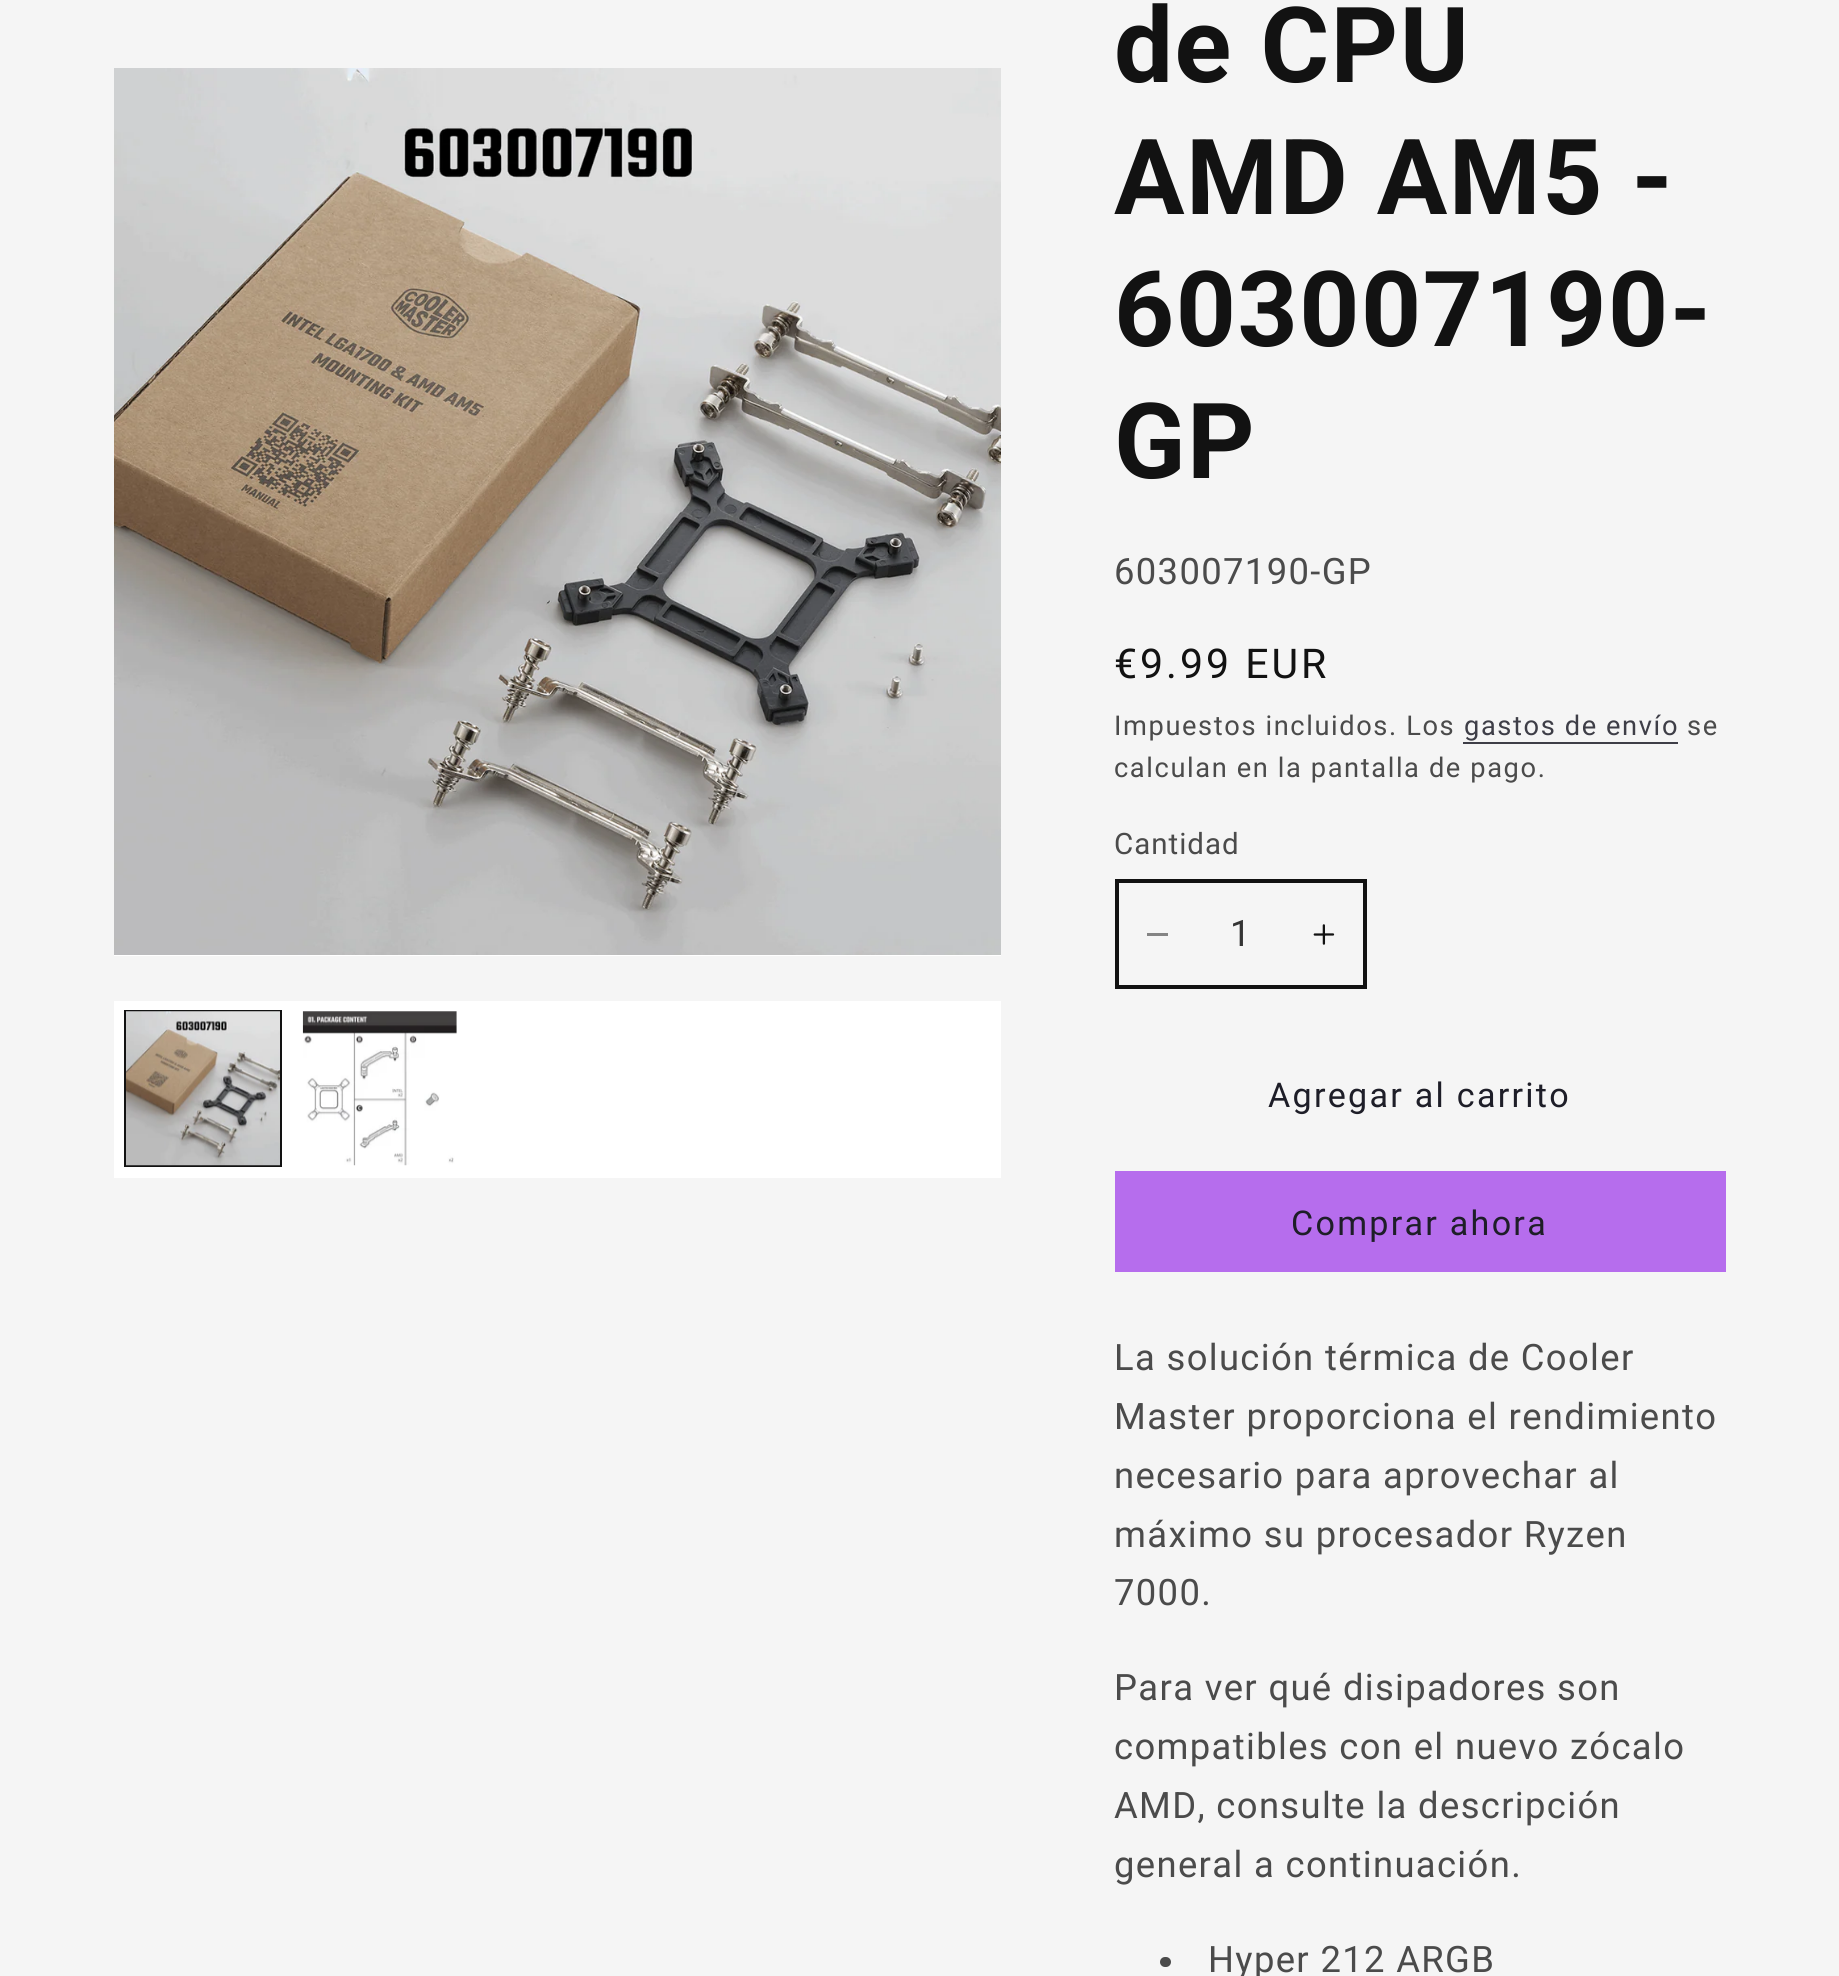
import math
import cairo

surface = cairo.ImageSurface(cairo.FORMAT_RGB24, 1839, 1976)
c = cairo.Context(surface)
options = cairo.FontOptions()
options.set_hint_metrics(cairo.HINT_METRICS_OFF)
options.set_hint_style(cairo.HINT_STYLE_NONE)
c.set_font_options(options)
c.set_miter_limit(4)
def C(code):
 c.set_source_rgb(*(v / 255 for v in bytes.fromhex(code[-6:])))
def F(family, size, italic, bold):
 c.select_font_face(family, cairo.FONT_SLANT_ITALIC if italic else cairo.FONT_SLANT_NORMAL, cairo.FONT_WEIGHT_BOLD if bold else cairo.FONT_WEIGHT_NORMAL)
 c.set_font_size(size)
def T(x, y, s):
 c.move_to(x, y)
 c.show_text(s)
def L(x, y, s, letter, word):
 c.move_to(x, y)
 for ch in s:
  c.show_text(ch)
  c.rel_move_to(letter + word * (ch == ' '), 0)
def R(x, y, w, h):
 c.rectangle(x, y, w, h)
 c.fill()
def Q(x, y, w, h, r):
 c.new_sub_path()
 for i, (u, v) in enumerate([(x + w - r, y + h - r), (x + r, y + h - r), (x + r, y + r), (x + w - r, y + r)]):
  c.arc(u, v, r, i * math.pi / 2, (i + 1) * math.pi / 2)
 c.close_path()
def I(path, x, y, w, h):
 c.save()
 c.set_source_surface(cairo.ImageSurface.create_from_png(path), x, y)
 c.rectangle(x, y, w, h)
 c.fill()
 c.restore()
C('f5f5f5')
c.paint()
C('ffffff')
R(114,955,887,1)
I('1.png',114,68,887,887)
R(114,1001,887,177)
c.rectangle(125,1011,156,155)
C('121212')
c.stroke()
I('2.png',126,1011,154,155)
I('3.png',302,1011,155,155)
F('Roboto',105,0,1)
L(1114,82,'de CPU',1.5,0)
L(1114,214,'AMD AM5 -',1.5,0)
L(1114,346,'603007190-',1.5,0)
L(1114,478,'GP',1.5,0)
F('Roboto',36.4,0,0)
C('4b4b4b')
L(1114,584,'603007190-GP',1.35,0)
F('Roboto',41,0,0)
C('121212')
L(1114,678,'€9.99 EUR',3,0)
F('Roboto',27.25,0,0)
C('4b4b4b')
L(1114,735,'Impuestos incluidos. Los',1.6,0)
C('3e3e47')
L(1464,735,'gastos de envío',1.6,0)
R(1463,742,215,2)
C('4b4b4b')
L(1687,735,'se',1.6,0)
L(1114,777,'calculan en la pantalla de pago.',1.6,0)
F('Roboto',29.5,0,0)
L(1114,854,'Cantidad',1,0)
C('848484')
R(1147,933,21,3)
I('4.png',1313,924,22,21)
c.rectangle(1117,881,248,106)
C('121212')
c.set_line_width(4)
c.stroke()
F('Roboto',36.4,0,0)
C('343434')
T(1230,946,'1')
F('Roboto',34.1,0,0)
C('1e1e28')
L(1268,1107,'Agregar al carrito',2.25,0)
C('b66ded')
R(1115,1171,611,101)
C('1e1e28')
L(1291,1235,'Comprar ahora',2.25,0)
F('Roboto',36.4,0,0)
C('4b4b4b')
L(1114,1370,'La solución térmica de Cooler',1.35,0)
L(1114,1429,'Master proporciona el rendimiento',1.35,0)
L(1114,1488,'necesario para aprovechar al',1.35,0)
L(1114,1547,'máximo su procesador Ryzen',1.35,0)
L(1114,1605,'7000.',1.35,0)
L(1114,1700,'Para ver qué disipadores son',1.35,0)
L(1114,1759,'compatibles con el nuevo zócalo',1.35,0)
L(1114,1818,'AMD, consulte la descripción',1.35,0)
L(1114,1877,'general a continuación.',1.35,0)
Q(1160,1957,11,10,5)
c.fill()
L(1208,1972,'Hyper 212 ARGB',1.35,0)
surface.write_to_png('o.png')
